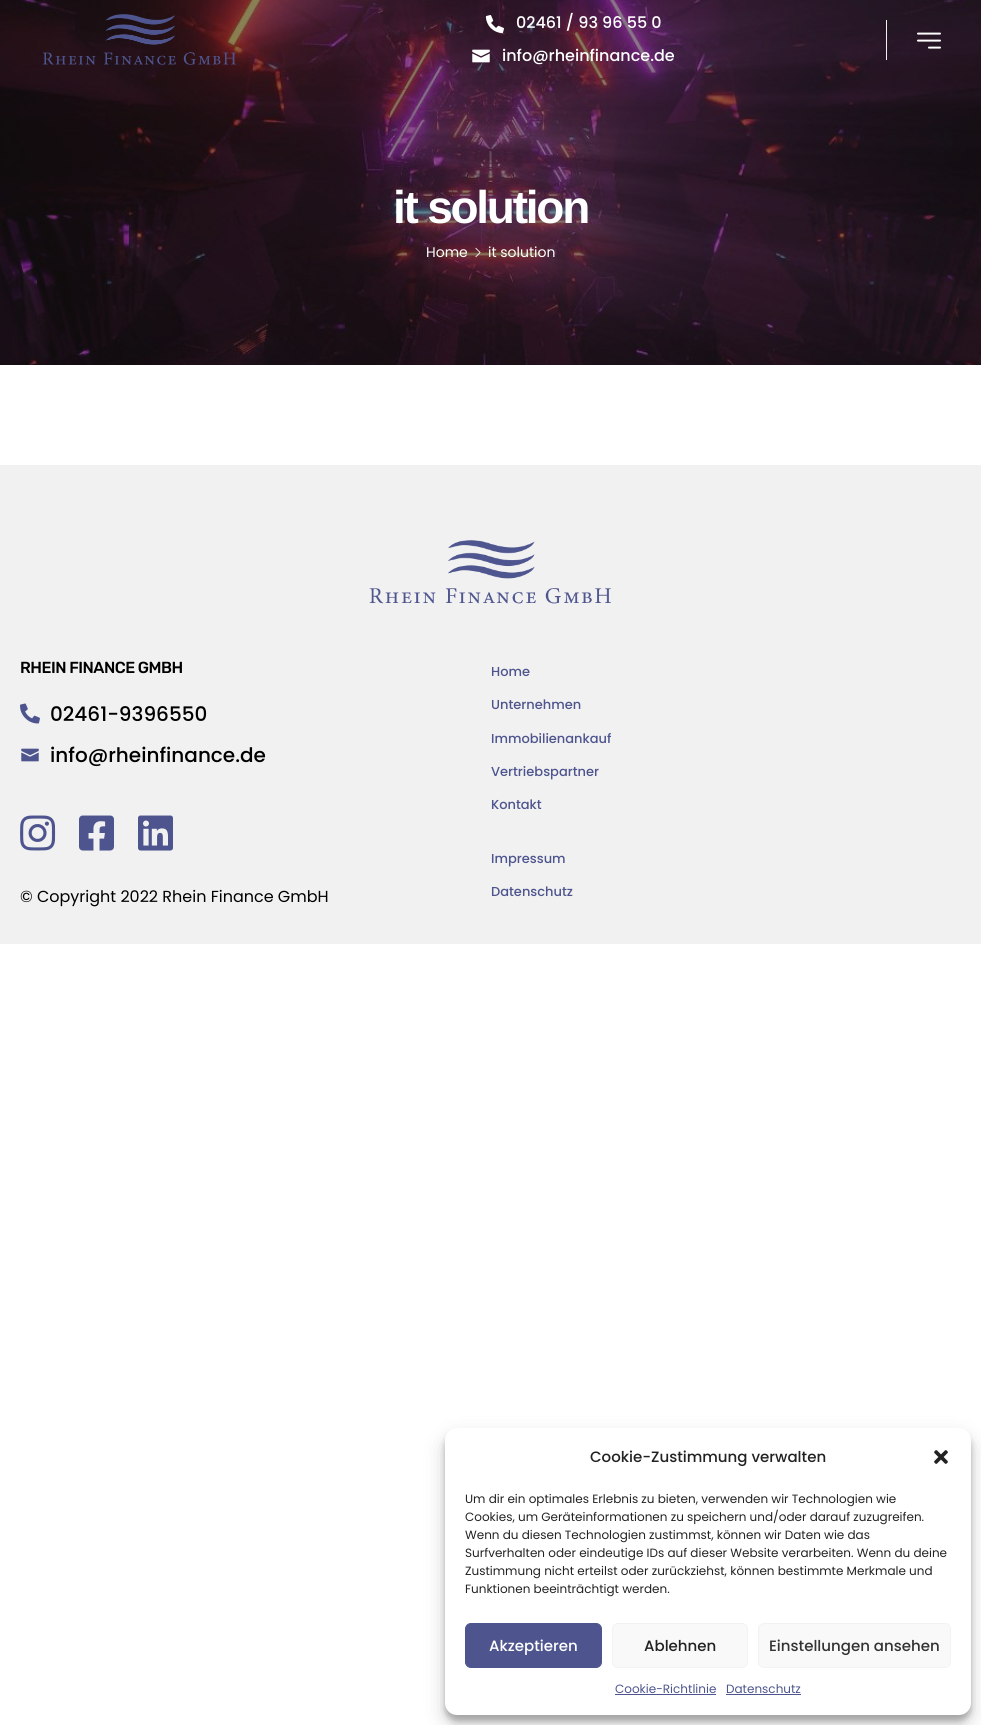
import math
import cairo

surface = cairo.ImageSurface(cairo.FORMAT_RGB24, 981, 1725)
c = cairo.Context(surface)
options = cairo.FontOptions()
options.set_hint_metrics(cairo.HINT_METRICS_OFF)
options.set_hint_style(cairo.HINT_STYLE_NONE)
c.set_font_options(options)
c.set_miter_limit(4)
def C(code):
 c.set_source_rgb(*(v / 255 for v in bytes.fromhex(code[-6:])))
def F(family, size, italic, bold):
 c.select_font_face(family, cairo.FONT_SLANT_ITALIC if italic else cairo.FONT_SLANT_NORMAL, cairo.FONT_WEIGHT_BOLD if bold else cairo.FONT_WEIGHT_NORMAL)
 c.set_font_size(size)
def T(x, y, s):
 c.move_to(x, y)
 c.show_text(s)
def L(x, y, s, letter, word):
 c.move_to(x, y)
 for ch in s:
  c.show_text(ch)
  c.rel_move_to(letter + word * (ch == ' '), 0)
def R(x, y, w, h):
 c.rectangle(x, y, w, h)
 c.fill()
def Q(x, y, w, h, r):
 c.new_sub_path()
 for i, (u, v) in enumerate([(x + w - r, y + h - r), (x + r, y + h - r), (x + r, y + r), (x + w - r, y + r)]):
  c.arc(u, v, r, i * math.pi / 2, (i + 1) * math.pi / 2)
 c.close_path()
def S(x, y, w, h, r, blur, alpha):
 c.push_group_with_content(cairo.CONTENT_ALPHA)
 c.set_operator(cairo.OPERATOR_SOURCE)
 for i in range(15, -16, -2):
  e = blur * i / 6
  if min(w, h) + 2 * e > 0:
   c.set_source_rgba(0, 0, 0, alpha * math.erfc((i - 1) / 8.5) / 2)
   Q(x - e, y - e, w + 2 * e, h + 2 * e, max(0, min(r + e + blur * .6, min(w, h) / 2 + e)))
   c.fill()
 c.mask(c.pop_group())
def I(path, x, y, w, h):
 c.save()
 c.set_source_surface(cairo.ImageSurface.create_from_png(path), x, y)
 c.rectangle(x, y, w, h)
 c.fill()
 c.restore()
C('ffffff')
c.paint()
I('5.png',0,0,981,365)
I('1.png',42,14,194,51)
I('2.png',485,15,19,19)
F('Poppins Medium',16,0,0)
C('ffffff')
T(516,28,'02461 / 93 96 55 0')
I('3.png',472,49,18,14)
T(502,61,'info@rheinfinance.de')
C('f1f1f1')
R(886,20,1,40)
I('4.png',917,32,24,17)
F('Liberation Sans',46,0,1)
C('ffffff')
L(393,223,'it solution',-2.25,0)
F('Poppins',14,0,0)
T(426,257,'Home')
I('6.png',475,247,6,11)
T(488,257,'it solution')
C('f1f1f1')
R(0,465,981,479)
I('7.png',369,540,242,64)
F('Rubik Medium',16,0,0)
C('000000')
L(20,673,'RHEIN FINANCE GMBH',-.5,0)
I('8.png',20,703,20,21)
F('Poppins Medium',20,0,0)
T(50,721,'02461-9396550')
I('9.png',21,748,18,14)
T(50,762,'info@rheinfinance.de')
I('10.png',20,815,36,36)
I('11.png',79,815,35,36)
I('12.png',138,815,35,36)
F('Poppins',16,0,0)
T(20,902,'© Copyright 2022 Rhein Finance GmbH')
F('Poppins Medium',13,0,0)
C('4e558e')
T(491,676,'Home')
T(491,709,'Unternehmen')
T(491,743,'Immobilienankauf')
T(491,776,'Vertriebspartner')
T(491,809,'Kontakt')
T(491,863,'Impressum')
T(491,896,'Datenschutz')
C('000000')
S(445,1434,526,287,12,3,.23)
S(445,1438,526,287,12,10,.19)
C('ffffff')
Q(445,1428,526,287,12)
c.fill()
F('Poppins Medium',15,0,0)
C('222222')
T(590,1462,'Cookie-Zustimmung verwalten')
I('13.png',934,1450,14,14)
F('Poppins',12,0,0)
T(465,1503,'Um dir ein optimales Erlebnis zu bieten, verwenden wir Technologien wie')
T(465,1521,'Cookies, um Geräteinformationen zu speichern und/oder darauf zuzugreifen.')
T(465,1539,'Wenn du diesen Technologien zustimmst, können wir Daten wie das')
T(465,1557,'Surfverhalten oder eindeutige IDs auf dieser Website verarbeiten. Wenn du deine')
T(465,1575,'Zustimmung nicht erteilst oder zurückziehst, können bestimmte Merkmale und')
T(465,1593,'Funktionen beeinträchtigt werden.')
C('4e558e')
Q(465.5,1623.5,136,44,5.5)
c.fill_preserve()
c.set_line_width(1)
c.stroke()
F('Poppins Medium',15,0,0)
C('ffffff')
T(489,1651,'Akzeptieren')
C('f9f9f9')
Q(612.5,1623.5,135,44,5.5)
c.fill_preserve()
C('f2f2f2')
c.stroke()
C('222222')
T(644,1651,'Ablehnen')
C('f9f9f9')
Q(758.5,1623.5,192,44,5.5)
c.fill_preserve()
C('f2f2f2')
c.stroke()
C('333333')
T(769,1651,'Einstellungen ansehen')
F('Poppins',12,0,0)
C('4e558e')
T(615,1693,'Cookie-Richtlinie')
R(615,1694,101,1)
T(726,1693,'Datenschutz')
R(726,1694,75,1)
surface.write_to_png('o.png')
